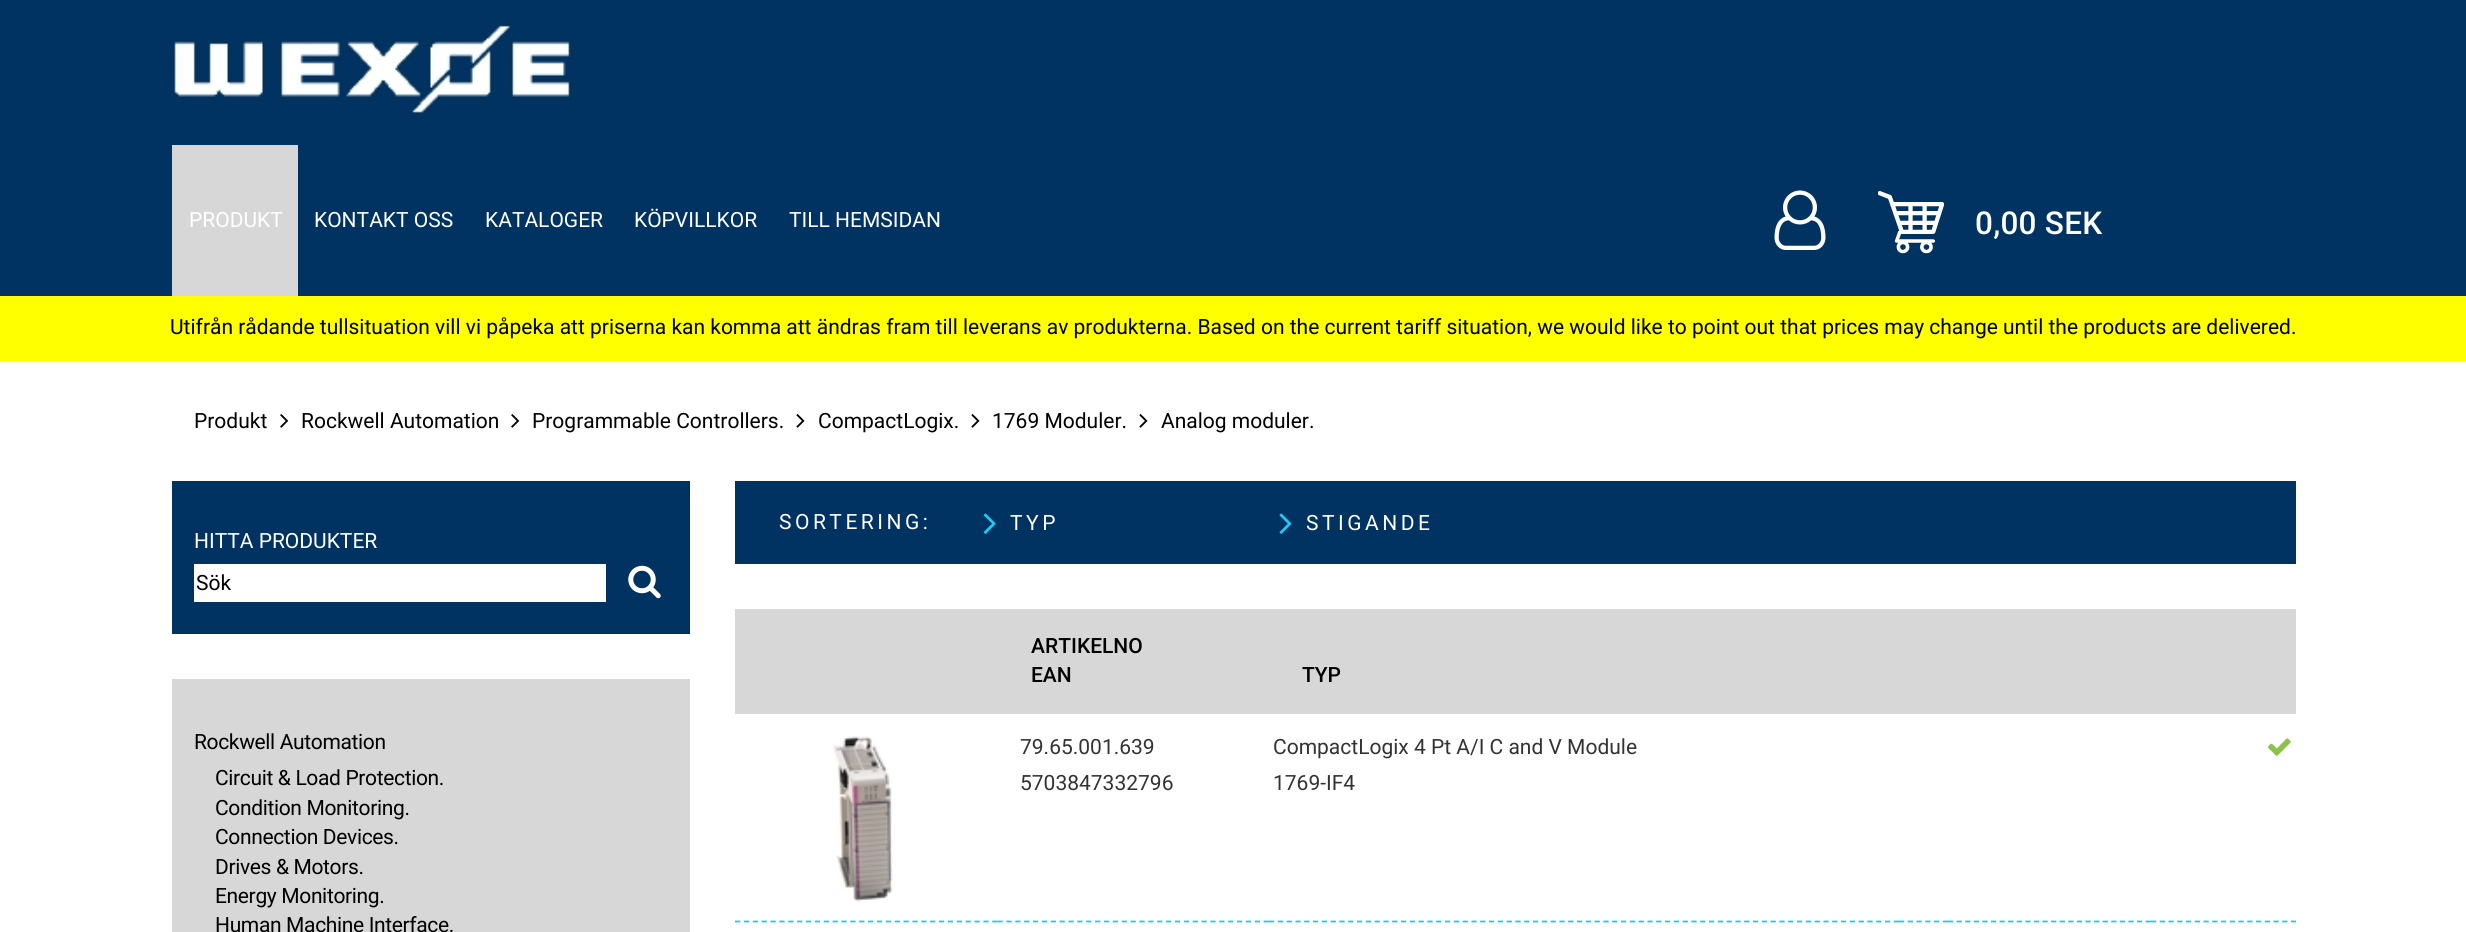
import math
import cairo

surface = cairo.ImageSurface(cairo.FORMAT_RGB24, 2466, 932)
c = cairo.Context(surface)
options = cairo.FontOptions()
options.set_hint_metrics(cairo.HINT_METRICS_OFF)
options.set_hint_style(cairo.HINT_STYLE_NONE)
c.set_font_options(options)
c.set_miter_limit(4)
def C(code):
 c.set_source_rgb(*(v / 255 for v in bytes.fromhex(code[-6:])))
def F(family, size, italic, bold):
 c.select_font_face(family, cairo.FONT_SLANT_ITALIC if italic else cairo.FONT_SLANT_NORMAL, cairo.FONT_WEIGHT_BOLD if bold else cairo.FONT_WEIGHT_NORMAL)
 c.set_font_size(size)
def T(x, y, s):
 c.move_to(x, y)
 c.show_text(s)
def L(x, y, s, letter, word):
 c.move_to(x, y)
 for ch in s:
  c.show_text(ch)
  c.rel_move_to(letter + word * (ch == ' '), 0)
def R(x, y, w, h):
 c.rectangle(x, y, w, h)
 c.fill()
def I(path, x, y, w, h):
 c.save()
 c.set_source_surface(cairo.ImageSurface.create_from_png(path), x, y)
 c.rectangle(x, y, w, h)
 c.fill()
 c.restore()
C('ffffff')
c.paint()
C('003362')
R(0,0,2466,296)
I('1.png',173,23,399,91)
C('d7d7d7')
R(172,145,126,151)
F('Roboto',21,0,0)
C('ffffff')
T(189,227,'PRODUKT')
T(314,227,'KONTAKT OSS')
T(485,227,'KATALOGER')
T(634,227,'KÖPVILLKOR')
T(789,227,'TILL HEMSIDAN')
I('2.png',1774,190,52,60)
I('3.png',1878,191,66,63)
F('Roboto Medium',31.5,0,0)
L(1975,234,'0,00 SEK',.25,0)
C('ffff00')
R(0,296,2466,65)
F('Roboto',21,0,0)
C('000000')
T(170,334,'Utifrån rådande tullsituation vill vi påpeka att priserna kan komma att ändras fram till leverans av produkterna. Based on the current tariff situation, we would like to point out that prices may change until the products are delivered.')
T(194,428,'Produkt')
I('4.png',280,414,9,14)
T(301,428,'Rockwell Automation')
I('4.png',511,414,9,14)
T(532,428,'Programmable Controllers.')
I('5.png',796,414,9,14)
T(818,428,'CompactLogix.')
I('5.png',971,414,9,14)
T(992,428,'1769 Moduler.')
I('5.png',1139,414,9,14)
T(1161,428,'Analog moduler.')
C('003362')
R(172,481,518,153)
C('ffffff')
T(194,548,'HITTA PRODUKTER')
R(194,564,412,38)
C('000000')
T(196,590,'Sök')
I('6.png',628,565,33,34)
C('d7d7d7')
R(172,679,518,253)
C('000000')
L(194,749,'Rockwell Automation',-.35,0)
L(215,785,'Circuit & Load Protection.',-.35,0)
L(215,815,'Condition Monitoring.',-.35,0)
L(215,844,'Connection Devices.',-.35,0)
L(215,874,'Drives & Motors.',-.35,0)
L(215,903,'Energy Monitoring.',-.35,0)
L(215,932,'Human Machine Interface.',-.35,0)
C('003362')
R(735,481,1561,83)
C('ffffff')
L(779,529,'SORTERING:',3.5,0)
I('7.png',983,513,13,21)
L(1010,530,'TYP',3.5,0)
I('8.png',1279,513,13,21)
L(1306,530,'STIGANDE',3.5,0)
C('d7d7d7')
R(735,609,1561,105)
F('Roboto Medium',21,0,0)
C('000000')
T(1031,653,'ARTIKELNO')
T(1031,682,'EAN')
T(1302,682,'TYP')
I('9.png',832,736,61,166)
F('Roboto',21,0,0)
C('333333')
T(1020,754,'79.65.001.639')
T(1020,790,'5703847332796')
T(1273,754,'CompactLogix 4 Pt A/I C and V Module')
T(1273,790,'1769-IF4')
I('10.png',2268,738,23,18)
c.new_path()
c.move_to(735,921.5)
c.line_to(997.5,921.5)
C('1bcbf1')
c.set_line_width(1.8)
c.set_dash([5.25,3.62])
c.stroke()
c.new_path()
c.move_to(997.5,921.5)
c.line_to(1269,921.5)
c.stroke()
c.new_path()
c.move_to(1269,921.5)
c.line_to(1899,921.5)
c.set_dash([5.25,3.55])
c.stroke()
c.new_path()
c.move_to(1899,921.5)
c.line_to(1948,921.5)
c.set_dash([5.25,3.5])
c.stroke()
c.new_path()
c.move_to(1948,921.5)
c.line_to(2151,921.5)
c.set_dash([5.25,3.34])
c.stroke()
c.new_path()
c.move_to(2151,921.5)
c.line_to(2296,921.5)
c.set_dash([5.25,3.5])
c.stroke()
surface.write_to_png('o.png')
